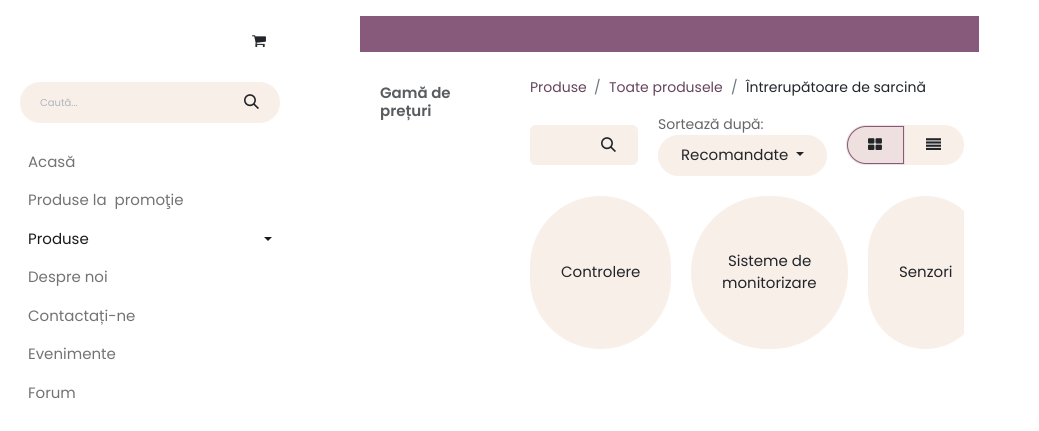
import math
import cairo

surface = cairo.ImageSurface(cairo.FORMAT_RGB24, 1039, 431)
c = cairo.Context(surface)
options = cairo.FontOptions()
options.set_hint_metrics(cairo.HINT_METRICS_OFF)
options.set_hint_style(cairo.HINT_STYLE_NONE)
c.set_font_options(options)
c.set_miter_limit(4)
def C(code):
 c.set_source_rgb(*(v / 255 for v in bytes.fromhex(code[-6:])))
def F(family, size, italic, bold):
 c.select_font_face(family, cairo.FONT_SLANT_ITALIC if italic else cairo.FONT_SLANT_NORMAL, cairo.FONT_WEIGHT_BOLD if bold else cairo.FONT_WEIGHT_NORMAL)
 c.set_font_size(size)
def T(x, y, s):
 c.move_to(x, y)
 c.show_text(s)
def R(x, y, w, h):
 c.rectangle(x, y, w, h)
 c.fill()
def Q(x, y, w, h, r):
 c.new_sub_path()
 for i, (u, v) in enumerate([(x + w - r, y + h - r), (x + r, y + h - r), (x + r, y + r), (x + w - r, y + r)]):
  c.arc(u, v, r, i * math.pi / 2, (i + 1) * math.pi / 2)
 c.close_path()
def I(path, x, y, w, h):
 c.save()
 c.set_source_surface(cairo.ImageSurface.create_from_png(path), x, y)
 c.rectangle(x, y, w, h)
 c.fill()
 c.restore()
C('ffffff')
c.paint()
I('1.png',252,35,14,13)
C('f9efe9')
c.new_path()
c.move_to(40.5,82)
c.line_to(222,82)
c.line_to(222,123)
c.line_to(40.5,123)
c.curve_to(29,123,20,114,20,102.5)
c.curve_to(20,91,29,82,40.5,82)
c.close_path()
c.fill()
F('Poppins',10,0,0)
C('adb5bd')
T(40,106,'Caută...')
C('f9efe9')
c.new_path()
c.move_to(221,82)
c.line_to(259.5,82)
c.curve_to(271,82,280,91,280,102.5)
c.curve_to(280,114,271,123,259.5,123)
c.line_to(221,123)
c.close_path()
c.fill()
I('2.png',244,94,15,15)
F('Poppins',15,0,0)
C('737373')
T(28,167,'Acasă')
T(28,205,'Produse la  promoţie')
C('1a1a1a')
T(28,244,'Produse')
c.new_path()
c.move_to(264,237)
c.line_to(272,237)
c.line_to(268,241)
c.close_path()
c.fill()
C('737373')
T(28,282,'Despre noi')
T(28,321,'Contactați-ne')
T(28,359,'Evenimente')
T(28,398,'Forum')
C('875a7b')
R(360,16,619,36)
F('Poppins SemiBold',15,0,0)
C('595c5f')
T(380,98,'Gamă de')
T(380,116,'prețuri')
F('Poppins',14,0,0)
C('65445c')
T(530,92,'Produse')
C('6c757d')
T(594,92,'/')
C('65445c')
T(609,92,'Toate produsele')
C('6c757d')
T(731,92,'/')
C('212529')
T(746,92,'Întrerupătoare de sarcină')
C('f9efe9')
c.new_path()
c.move_to(536,125)
c.line_to(579,125)
c.line_to(579,165)
c.line_to(536,165)
c.curve_to(532.5,165,530,162.5,530,159)
c.line_to(530,131)
c.curve_to(530,127.5,532.5,125,536,125)
c.close_path()
c.fill()
c.new_path()
c.move_to(578.5,125.5)
c.line_to(632,125.5)
c.curve_to(635,125.5,637.5,128,637.5,131)
c.line_to(637.5,159)
c.curve_to(637.5,162,635,164.5,632,164.5)
c.line_to(578.5,164.5)
c.close_path()
c.fill_preserve()
c.set_line_width(1)
c.stroke()
I('2.png',601,137,15,15)
C('646669')
T(658,129,'Sortează după:')
C('f9efe9')
Q(658.5,135.5,168,40,20)
c.fill_preserve()
c.stroke()
F('Poppins',15,0,0)
C('212529')
T(681,160,'Recomandate')
c.new_path()
c.move_to(796,152)
c.line_to(804,152)
c.line_to(800,156)
c.close_path()
c.fill()
C('f9efe9')
c.new_path()
c.move_to(904.5,125.5)
c.line_to(944,125.5)
c.curve_to(955,125.5,963.5,134,963.5,145)
c.curve_to(963.5,156,955,164.5,944,164.5)
c.line_to(904.5,164.5)
c.close_path()
c.fill_preserve()
c.stroke()
C('eee0de')
c.new_path()
c.move_to(866,125)
c.line_to(905,125)
c.line_to(905,165)
c.line_to(866,165)
c.curve_to(855,165,846,156,846,145)
c.curve_to(846,134,855,125,866,125)
c.close_path()
c.fill()
c.new_path()
c.move_to(866,126.5)
c.line_to(903.5,126.5)
c.line_to(903.5,163.5)
c.line_to(866,163.5)
c.curve_to(856,163.5,847.5,155,847.5,145)
c.curve_to(847.5,135,856,126.5,866,126.5)
c.close_path()
C('875a7b')
c.stroke()
I('3.png',868,138,14,12)
I('4.png',926,138,15,12)
C('f9efe9')
Q(530.5,196.5,140,152,70)
c.fill_preserve()
c.stroke()
C('212529')
T(561,277,'Controlere')
C('f9efe9')
Q(691.5,196.5,156,152,76)
c.fill_preserve()
c.stroke()
C('212529')
T(728,266,'Sisteme de')
T(722,288,'monitorizare')
c.save()
c.rectangle(530,196,434,158)
c.clip()
C('f9efe9')
Q(868.5,196.5,114,152,57)
c.fill_preserve()
c.stroke()
c.restore()
T(899,277,'Senzori')
surface.write_to_png('o.png')
